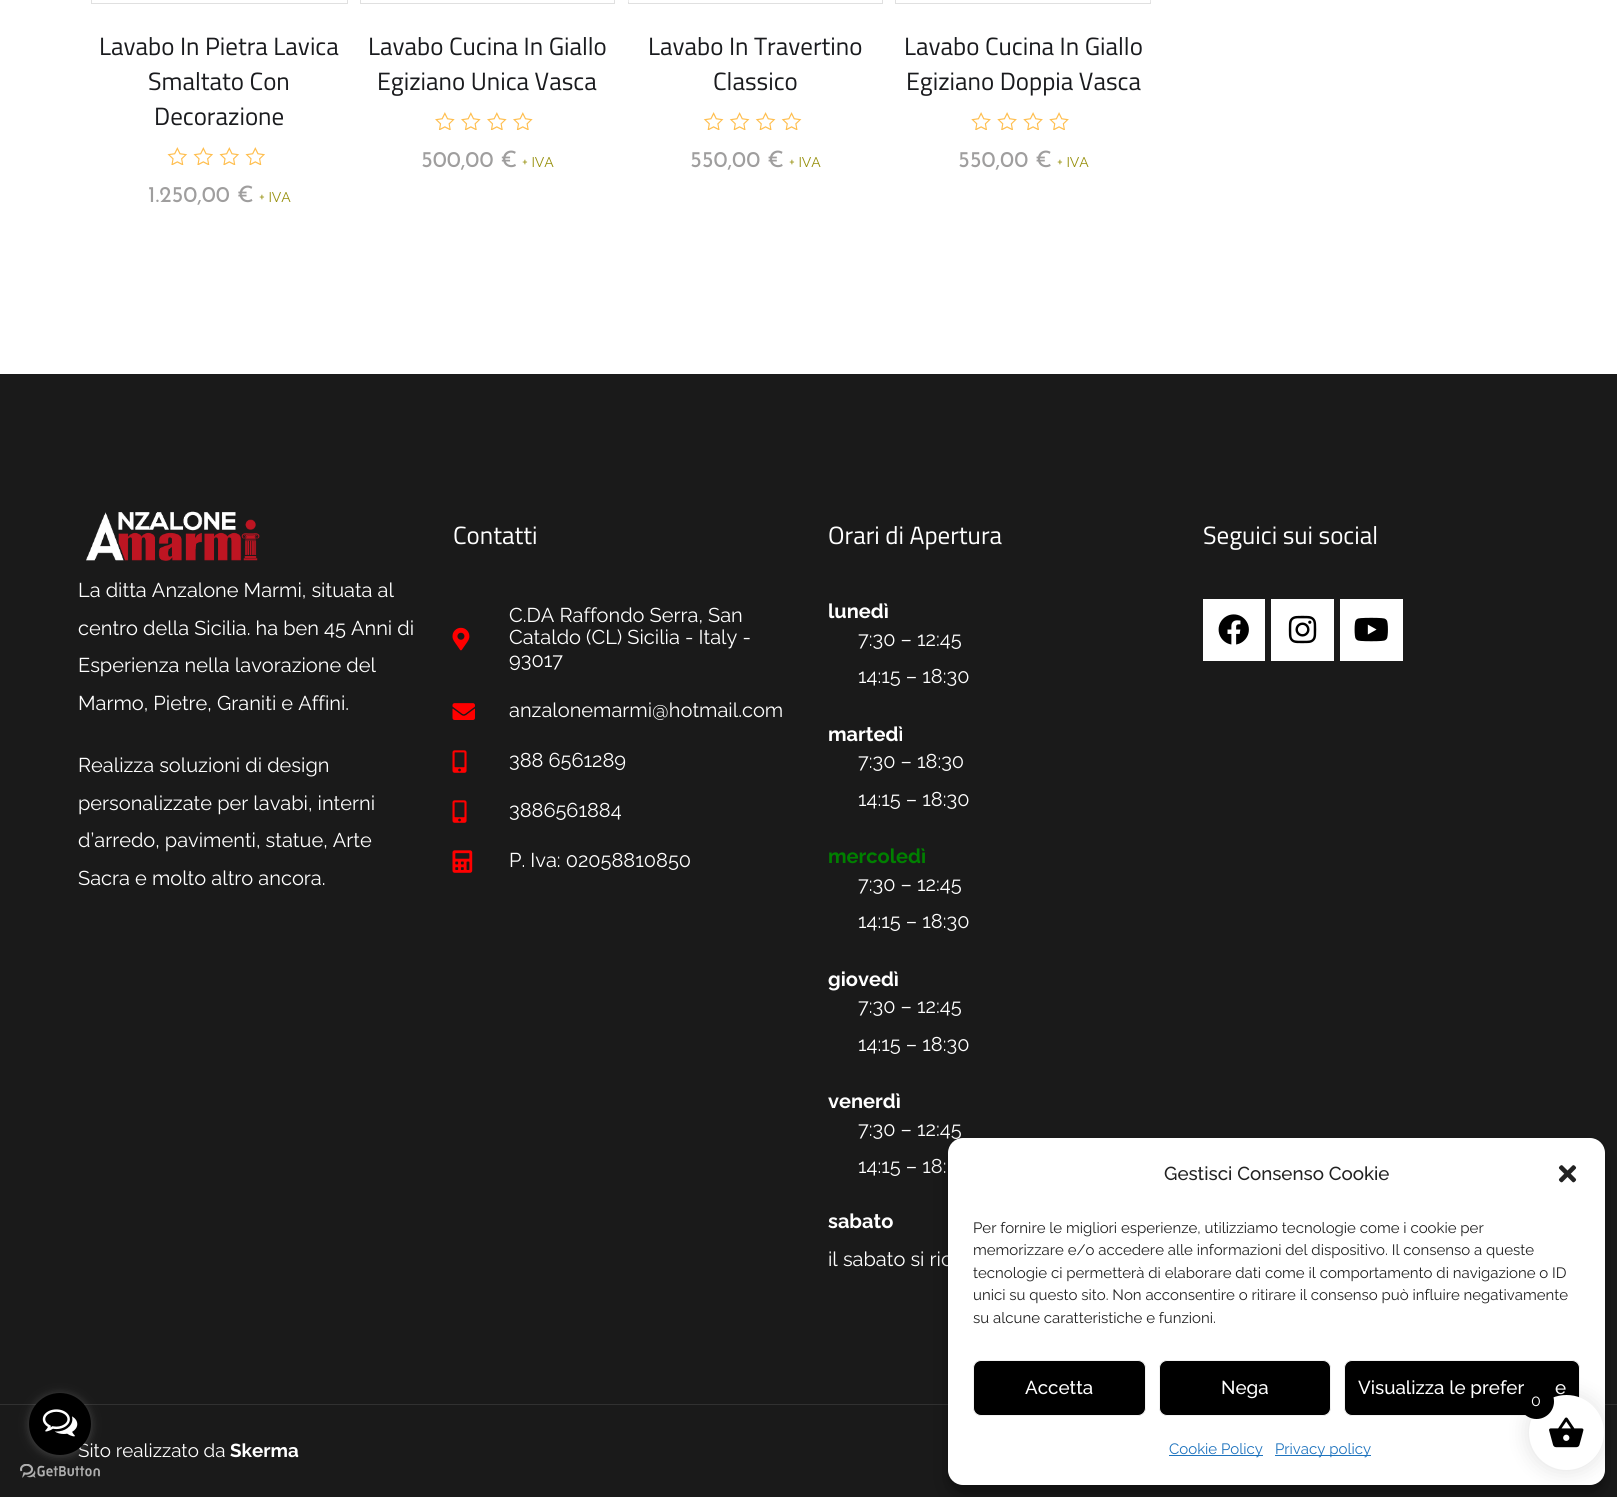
import math
import cairo

surface = cairo.ImageSurface(cairo.FORMAT_RGB24, 1617, 1497)
c = cairo.Context(surface)
options = cairo.FontOptions()
options.set_hint_metrics(cairo.HINT_METRICS_OFF)
options.set_hint_style(cairo.HINT_STYLE_NONE)
c.set_font_options(options)
c.set_miter_limit(4)
def C(code):
 c.set_source_rgb(*(v / 255 for v in bytes.fromhex(code[-6:])))
def F(family, size, italic, bold):
 c.select_font_face(family, cairo.FONT_SLANT_ITALIC if italic else cairo.FONT_SLANT_NORMAL, cairo.FONT_WEIGHT_BOLD if bold else cairo.FONT_WEIGHT_NORMAL)
 c.set_font_size(size)
def T(x, y, s):
 c.move_to(x, y)
 c.show_text(s)
def R(x, y, w, h):
 c.rectangle(x, y, w, h)
 c.fill()
def Q(x, y, w, h, r):
 c.new_sub_path()
 for i, (u, v) in enumerate([(x + w - r, y + h - r), (x + r, y + h - r), (x + r, y + r), (x + w - r, y + r)]):
  c.arc(u, v, r, i * math.pi / 2, (i + 1) * math.pi / 2)
 c.close_path()
def S(x, y, w, h, r, blur, alpha):
 c.push_group_with_content(cairo.CONTENT_ALPHA)
 c.set_operator(cairo.OPERATOR_SOURCE)
 for i in range(15, -16, -2):
  e = blur * i / 6
  if min(w, h) + 2 * e > 0:
   c.set_source_rgba(0, 0, 0, alpha * math.erfc((i - 1) / 8.5) / 2)
   Q(x - e, y - e, w + 2 * e, h + 2 * e, max(0, min(r + e + blur * .6, min(w, h) / 2 + e)))
   c.fill()
 c.mask(c.pop_group())
def I(path, x, y, w, h):
 c.save()
 c.set_source_surface(cairo.ImageSurface.create_from_png(path), x, y)
 c.rectangle(x, y, w, h)
 c.fill()
 c.restore()
C('ffffff')
c.paint()
c.rectangle(91.5,-.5,256,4)
C('e0e0e0')
c.set_line_width(1)
c.stroke()
F('Titillium Web',25,0,0)
C('1a1b1e')
T(99,55,'Lavabo In Pietra Lavica')
T(148,90,'Smaltato Con')
T(154,125,'Decorazione')
I('1.png',167,147,98,18)
F('Josefin Sans',22.5,0,0)
C('9f9e9e')
T(148,202,'1.250,00 €')
F('Raleway',14,0,0)
C('958e09')
T(259,202,'+ IVA')
c.rectangle(360.5,-.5,254,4)
C('e0e0e0')
c.stroke()
F('Titillium Web',25,0,0)
C('1a1b1e')
T(368,55,'Lavabo Cucina In Giallo')
T(377,90,'Egiziano Unica Vasca')
I('2.png',435,112,98,18)
F('Josefin Sans',22.5,0,0)
C('9f9e9e')
T(421,167,'500,00 €')
F('Raleway',14,0,0)
C('958e09')
T(522,167,'+ IVA')
c.rectangle(628.5,-.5,254,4)
C('e0e0e0')
c.stroke()
C('ebebeb')
R(628,0,1,2)
F('Titillium Web',25,0,0)
C('1a1b1e')
T(648,55,'Lavabo In Travertino')
T(713,90,'Classico')
I('3.png',703,112,99,18)
F('Josefin Sans',22.5,0,0)
C('9f9e9e')
T(690,167,'550,00 €')
F('Raleway',14,0,0)
C('958e09')
T(789,167,'+ IVA')
c.rectangle(895.5,-.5,255,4)
C('e0e0e0')
c.stroke()
I('4.png',1150,0,1,2)
F('Titillium Web',25,0,0)
C('1a1b1e')
T(904,55,'Lavabo Cucina In Giallo')
T(906,90,'Egiziano Doppia Vasca')
I('5.png',971,112,98,18)
F('Josefin Sans',22.5,0,0)
C('9f9e9e')
T(958,167,'550,00 €')
F('Raleway',14,0,0)
C('958e09')
T(1057,167,'+ IVA')
C('1a1a1a')
R(0,374,1617,1030)
F('Titillium Web',25,0,0)
C('ffffff')
T(453,544,'Contatti')
I('6.png',452,627,18,24)
F('Raleway',20,0,0)
T(509,622,'C.DA Raffondo Serra, San')
T(509,644,'Cataldo (CL) Sicilia - Italy -')
T(509,667,'93017')
I('7.png',452,703,23,17)
T(509,717,'anzalonemarmi@hotmail.com')
I('8.png',452,750,15,23)
T(509,767,'388 6561289')
I('8.png',452,800,15,23)
T(509,817,'3886561884')
I('9.png',452,850,21,23)
T(509,867,'P. Iva: 02058810850')
F('Titillium Web',25,0,0)
T(828,544,'Orari di Apertura')
F('Raleway',20,0,1)
T(828,618,'lunedì')
F('Raleway',20,0,0)
T(858,646,'7:30 – 12:45')
T(858,683,'14:15 – 18:30')
F('Raleway',20,0,1)
T(828,741,'martedì')
F('Raleway',20,0,0)
T(858,768,'7:30 – 18:30')
T(858,806,'14:15 – 18:30')
F('Raleway',20,0,1)
C('008000')
T(828,863,'mercoledì')
F('Raleway',20,0,0)
C('ffffff')
T(858,891,'7:30 – 12:45')
T(858,928,'14:15 – 18:30')
F('Raleway',20,0,1)
T(828,986,'giovedì')
F('Raleway',20,0,0)
T(858,1013,'7:30 – 12:45')
T(858,1051,'14:15 – 18:30')
F('Raleway',20,0,1)
T(828,1108,'venerdì')
F('Raleway',20,0,0)
T(858,1136,'7:30 – 12:45')
T(858,1173,'14:15 – 18:')
F('Raleway',20,0,1)
T(828,1228,'sabato')
F('Raleway',20,0,0)
T(828,1266,'il sabato si ric')
F('Titillium Web',25,0,0)
T(1203,544,'Seguici sui social')
R(1203,599,62,62)
I('10.png',1218,614,31,31)
R(1271,599,63,62)
I('11.png',1288,615,29,29)
R(1340,599,63,62)
I('12.png',1354,617,34,25)
I('13.png',86,511,174,50)
F('Raleway',20,0,0)
T(78,597,'La ditta Anzalone Marmi, situata al')
T(78,635,'centro della Sicilia. ha ben 45 Anni di')
T(78,672,'Esperienza nella lavorazione del')
T(78,710,'Marmo, Pietre, Graniti e Affini.')
T(78,772,'Realizza soluzioni di design')
T(78,810,'personalizzate per lavabi, interni')
T(78,847,'d’arredo, pavimenti, statue, Arte')
T(78,885,'Sacra e molto altro ancora.')
C('1a1a1a')
R(0,1405,1617,92)
C('313131')
R(0,1404,1617,1)
F('Raleway',18.75,0,0)
C('ffffff')
T(78,1457,'Sito realizzato da')
F('Raleway',18.75,0,1)
T(230,1457,'Skerma')
I('15.png',20,1464,80,14)
C('888888')
S(29,1394,62,62,31,4.5,.4)
C('000000')
c.arc(60,1424,31,0,2 * math.pi)
c.fill()
I('14.png',42,1409,36,28)
C('000000')
S(948,1145,657,348,15,4,.23)
S(948,1150,657,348,15,12.5,.19)
C('ffffff')
Q(948,1138,657,347,15)
c.fill()
F('Raleway Medium',18.75,0,0)
C('222222')
T(1164,1180,'Gestisci Consenso Cookie')
I('16.png',1558,1165,19,18)
F('Raleway',15,0,0)
T(973,1233,'Per fornire le migliori esperienze, utilizziamo tecnologie come i cookie per')
T(973,1255,'memorizzare e/o accedere alle informazioni del dispositivo. Il consenso a queste')
T(973,1278,'tecnologie ci permetterà di elaborare dati come il comportamento di navigazione o ID')
T(973,1300,'unici su questo sito. Non acconsentire o ritirare il consenso può influire negativamente')
T(973,1323,'su alcune caratteristiche e funzioni.')
C('000000')
Q(973.5,1360.5,172,55,7.5)
c.fill_preserve()
C('f2f2f2')
c.stroke()
F('Raleway Medium',18.75,0,0)
C('ffffff')
T(1025,1394,'Accetta')
C('000000')
Q(1159.5,1360.5,171,55,7.5)
c.fill_preserve()
C('f2f2f2')
c.stroke()
C('ffffff')
T(1221,1394,'Nega')
C('000000')
Q(1344.5,1360.5,235,55,7.5)
c.fill_preserve()
C('f2f2f2')
c.stroke()
C('ffffff')
T(1358,1394,'Visualizza le prefer')
T(1555,1394,'e')
C('1e73be')
R(1169,1455,94,1)
F('Raleway',15,0,0)
T(1169,1454,'Cookie Policy')
R(1275,1455,96,1)
T(1275,1454,'Privacy policy')
C('000000')
S(1526,1393,80,80,40,9.5,.1)
C('ffffff')
c.arc(1566.5,1432.5,37.5,0,2 * math.pi)
c.fill()
I('17.png',1549,1417,35,31)
C('000000')
c.arc(1536.5,1401.5,17.5,0,2 * math.pi)
c.fill()
F('Raleway',16,0,0)
C('ffffff')
T(1531,1406,'0')
surface.write_to_png('o.png')
